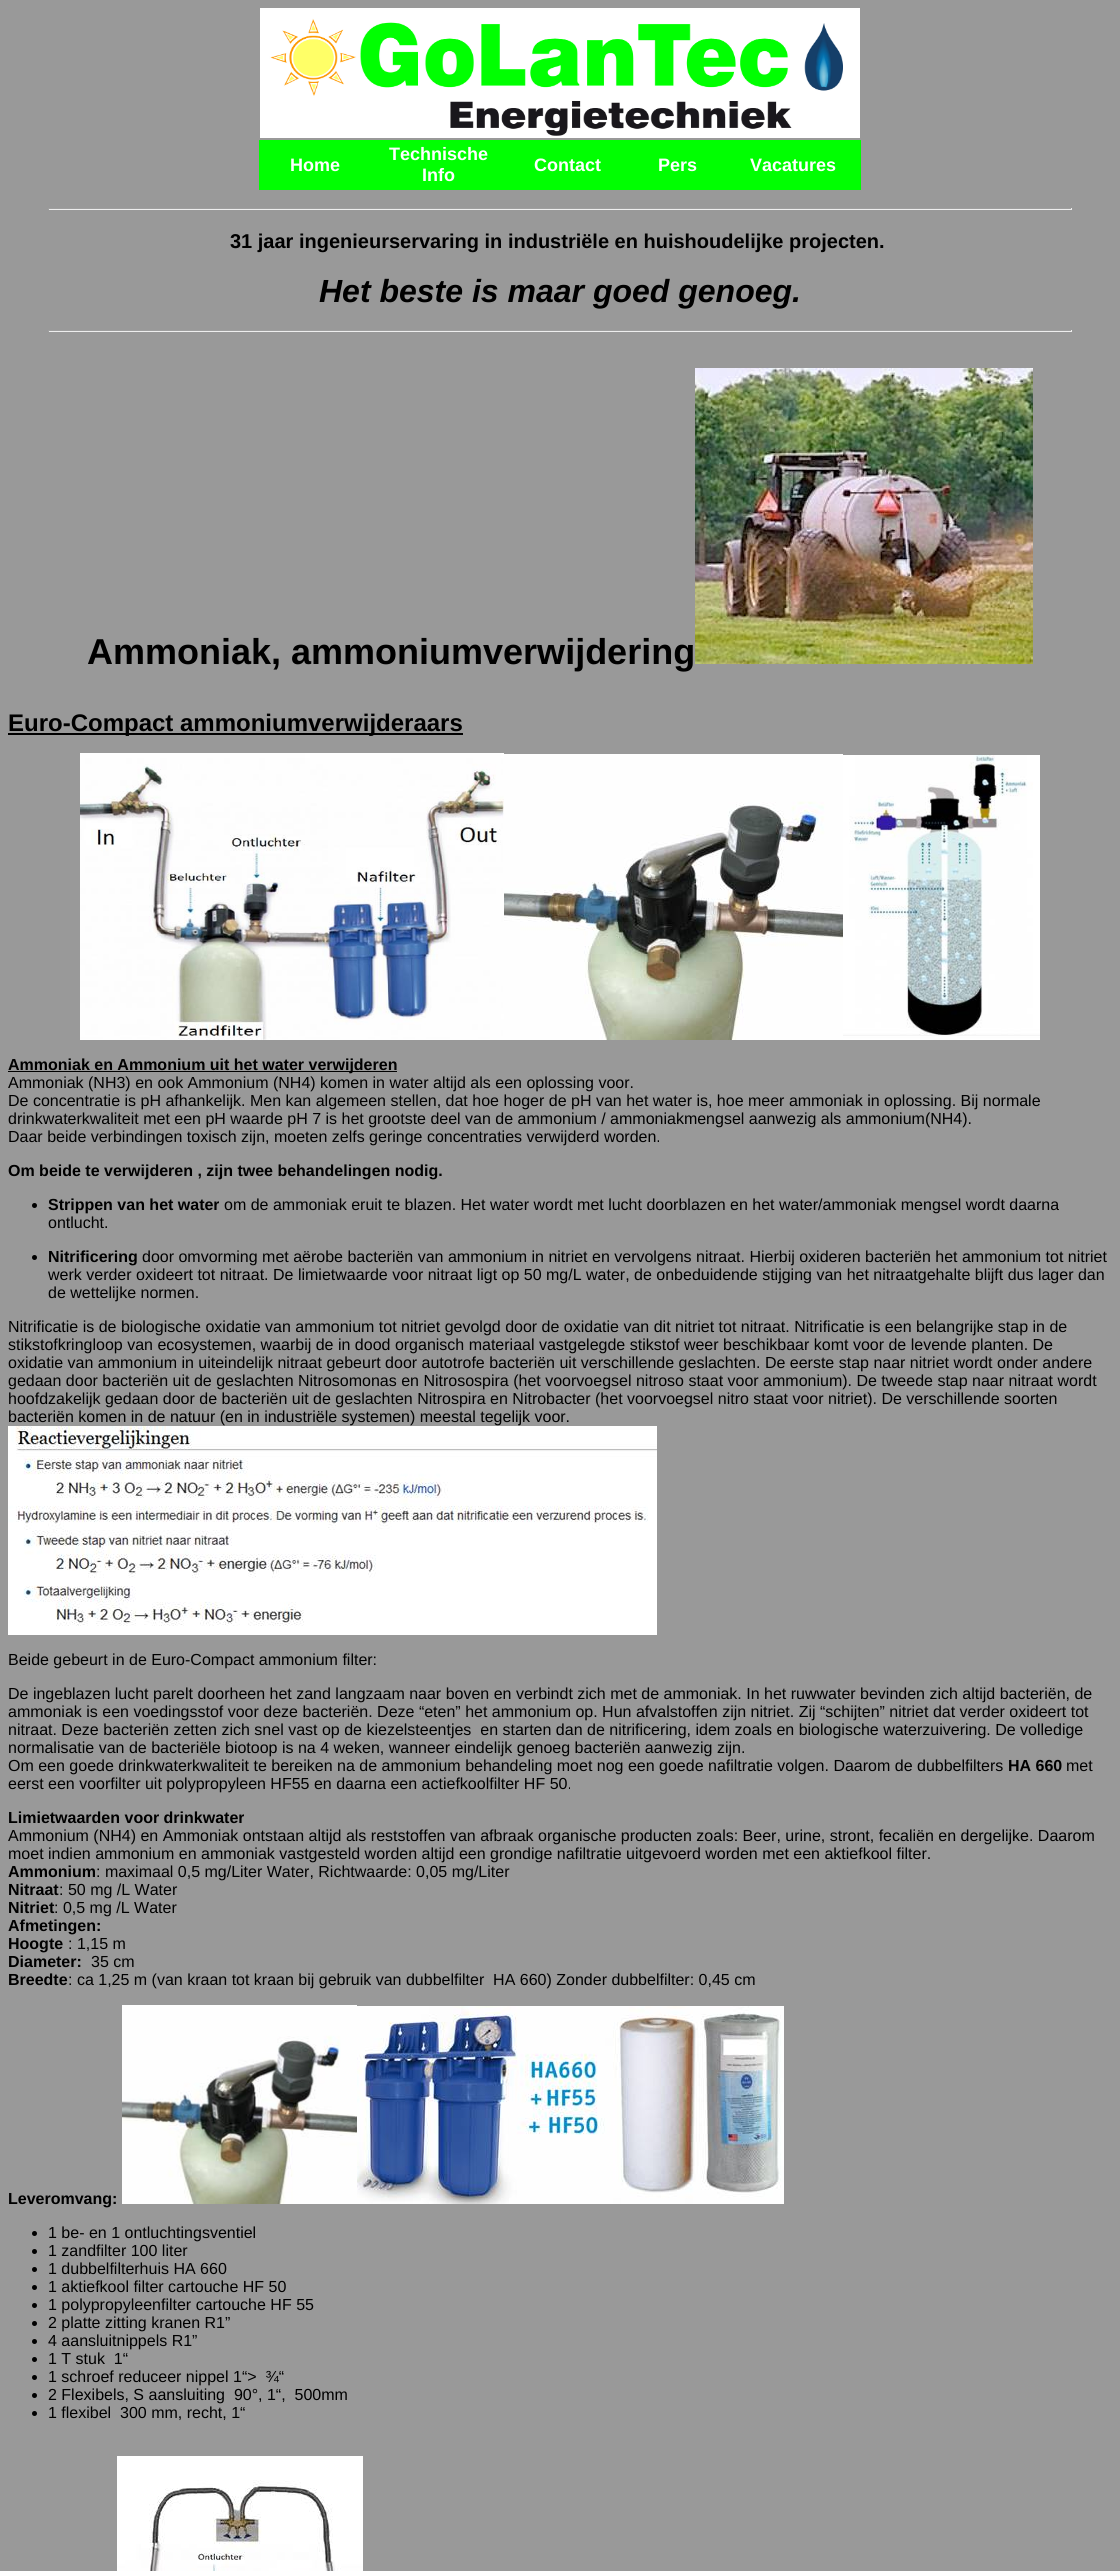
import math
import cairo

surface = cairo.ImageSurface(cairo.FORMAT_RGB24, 1120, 2571)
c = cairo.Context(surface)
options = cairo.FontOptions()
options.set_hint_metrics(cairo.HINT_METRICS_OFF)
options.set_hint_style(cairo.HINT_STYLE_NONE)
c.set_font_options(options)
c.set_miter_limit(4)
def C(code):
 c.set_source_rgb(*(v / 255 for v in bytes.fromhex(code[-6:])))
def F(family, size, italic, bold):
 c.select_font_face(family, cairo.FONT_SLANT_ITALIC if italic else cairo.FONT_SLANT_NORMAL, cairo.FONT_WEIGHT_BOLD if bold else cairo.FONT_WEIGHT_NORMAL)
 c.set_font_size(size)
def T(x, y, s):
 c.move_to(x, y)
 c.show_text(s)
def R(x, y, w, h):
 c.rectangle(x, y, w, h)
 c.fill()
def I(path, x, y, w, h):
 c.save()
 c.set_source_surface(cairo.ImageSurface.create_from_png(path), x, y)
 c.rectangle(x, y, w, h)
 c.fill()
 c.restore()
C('999999')
c.paint()
I('1.png',260,8,600,130)
C('00ff01')
R(259,140,602,50)
F('Liberation Sans',18,0,1)
C('ffffff')
T(290,171,'Home')
T(389,160,'Technische')
T(422,181,'Info')
T(534,171,'Contact')
T(658,171,'Pers')
T(750,171,'Vacatures')
C('9f9f9f')
R(48,208,1024,1)
C('eeeeee')
R(1071,208,1,2)
R(48,209,1024,1)
C('9f9f9f')
R(48,208,1,2)
F('Liberation Sans',20,0,1)
C('000000')
T(230,248,'31 jaar ingenieurservaring in industriële en huishoudelijke projecten.')
F('Liberation Sans',32,1,1)
T(319,302,'Het beste is maar goed genoeg.')
C('9f9f9f')
R(48,330,1024,1)
C('eeeeee')
R(1071,330,1,2)
R(48,331,1024,1)
C('9f9f9f')
R(48,330,1,2)
F('Liberation Sans',36,0,1)
C('000000')
T(87,664,'Ammoniak, ammoniumverwijdering')
I('2.png',695,368,338,296)
R(8,733,455,2)
F('Liberation Sans',24,0,1)
T(8,731,'Euro-Compact ammoniumverwijderaars')
I('3.png',80,753,424,287)
I('4.png',504,754,339,286)
I('5.png',843,755,197,285)
R(8,1071,389,1)
F('Liberation Sans',16,0,1)
T(8,1070,'Ammoniak en Ammonium uit het water verwijderen')
F('Liberation Sans',16,0,0)
T(8,1088,'Ammoniak (NH3) en ook Ammonium (NH4) komen in water altijd als een oplossing voor.')
T(8,1106,'De concentratie is pH afhankelijk. Men kan algemeen stellen, dat hoe hoger de pH van het water is, hoe meer ammoniak in oplossing. Bij normale')
T(8,1124,'drinkwaterkwaliteit met een pH waarde pH 7 is het grootste deel van de ammonium / ammoniakmengsel aanwezig als ammonium(NH4).')
T(8,1142,'Daar beide verbindingen toxisch zijn, moeten zelfs geringe concentraties verwijderd worden.')
F('Liberation Sans',16,0,1)
T(8,1176,'Om beide te verwijderen , zijn twee behandelingen nodig.')
c.new_path()
c.arc(34.5,1205.5,2.5,0,2 * math.pi)
c.fill()
T(48,1210,'Strippen van het water')
F('Liberation Sans',16,0,0)
T(224,1210,'om de ammoniak eruit te blazen. Het water wordt met lucht doorblazen en het water/ammoniak mengsel wordt daarna')
T(48,1228,'ontlucht.')
c.new_path()
c.arc(34.5,1257.5,2.5,0,2 * math.pi)
c.fill()
F('Liberation Sans',16,0,1)
T(48,1262,'Nitrificering')
F('Liberation Sans',16,0,0)
T(142,1262,'door omvorming met aërobe bacteriën van ammonium in nitriet en vervolgens nitraat. Hierbij oxideren bacteriën het ammonium tot nitriet')
T(48,1280,'werk verder oxideert tot nitraat. De limietwaarde voor nitraat ligt op 50 mg/L water, de onbeduidende stijging van het nitraatgehalte blijft dus lager dan')
T(48,1298,'de wettelijke normen.')
T(8,1332,'Nitrificatie is de biologische oxidatie van ammonium tot nitriet gevolgd door de oxidatie van dit nitriet tot nitraat. Nitrificatie is een belangrijke stap in de')
T(8,1350,'stikstofkringloop van ecosystemen, waarbij de in dood organisch materiaal vastgelegde stikstof weer beschikbaar komt voor de levende planten. De')
T(8,1368,'oxidatie van ammonium in uiteindelijk nitraat gebeurt door autotrofe bacteriën uit verschillende geslachten. De eerste stap naar nitriet wordt onder andere')
T(8,1386,'gedaan door bacteriën uit de geslachten Nitrosomonas en Nitrosospira (het voorvoegsel nitroso staat voor ammonium). De tweede stap naar nitraat wordt')
T(8,1404,'hoofdzakelijk gedaan door de bacteriën uit de geslachten Nitrospira en Nitrobacter (het voorvoegsel nitro staat voor nitriet). De verschillende soorten')
T(8,1422,'bacteriën komen in de natuur (en in industriële systemen) meestal tegelijk voor.')
I('6.png',8,1426,649,209)
T(8,1665,'Beide gebeurt in de Euro-Compact ammonium filter:')
T(8,1699,'De ingeblazen lucht parelt doorheen het zand langzaam naar boven en verbindt zich met de ammoniak. In het ruwwater bevinden zich altijd bacteriën, de')
T(8,1717,'ammoniak is een voedingsstof voor deze bacteriën. Deze “eten” het ammonium op. Hun afvalstoffen zijn nitriet. Zij “schijten” nitriet dat verder oxideert tot')
T(8,1735,'nitraat. Deze bacteriën zetten zich snel vast op de kiezelsteentjes  en starten dan de nitrificering, idem zoals en biologische waterzuivering. De volledige')
T(8,1753,'normalisatie van de bacteriële biotoop is na 4 weken, wanneer eindelijk genoeg bacteriën aanwezig zijn.')
T(8,1771,'Om een goede drinkwaterkwaliteit te bereiken na de ammonium behandeling moet nog een goede nafiltratie volgen. Daarom de dubbelfilters')
F('Liberation Sans',16,0,1)
T(1008,1771,'HA 660')
F('Liberation Sans',16,0,0)
T(1066,1771,'met')
T(8,1789,'eerst een voorfilter uit polypropyleen HF55 en daarna een actiefkoolfilter HF 50.')
F('Liberation Sans',16,0,1)
T(8,1823,'Limietwaarden voor drinkwater')
F('Liberation Sans',16,0,0)
T(8,1841,'Ammonium (NH4) en Ammoniak ontstaan altijd als reststoffen van afbraak organische producten zoals: Beer, urine, stront, fecaliën en dergelijke. Daarom')
T(8,1859,'moet indien ammonium en ammoniak vastgesteld worden altijd een grondige nafiltratie uitgevoerd worden met een aktiefkool filter.')
F('Liberation Sans',16,0,1)
T(8,1877,'Ammonium')
F('Liberation Sans',16,0,0)
T(96,1877,': maximaal 0,5 mg/Liter Water, Richtwaarde: 0,05 mg/Liter')
F('Liberation Sans',16,0,1)
T(8,1895,'Nitraat')
F('Liberation Sans',16,0,0)
T(59,1895,': 50 mg /L Water')
F('Liberation Sans',16,0,1)
T(8,1913,'Nitriet')
F('Liberation Sans',16,0,0)
T(54,1913,': 0,5 mg /L Water')
F('Liberation Sans',16,0,1)
T(8,1931,'Afmetingen:')
T(8,1949,'Hoogte')
F('Liberation Sans',16,0,0)
T(68,1949,': 1,15 m')
F('Liberation Sans',16,0,1)
T(8,1967,'Diameter:')
F('Liberation Sans',16,0,0)
T(91,1967,'35 cm')
F('Liberation Sans',16,0,1)
T(8,1985,'Breedte')
F('Liberation Sans',16,0,0)
T(68,1985,': ca 1,25 m (van kraan tot kraan bij gebruik van dubbelfilter  HA 660) Zonder dubbelfilter: 0,45 cm')
F('Liberation Sans',16,0,1)
T(8,2204,'Leveromvang:')
I('7.png',122,2005,235,199)
I('8.png',357,2006,427,198)
c.arc(34.5,2233.5,2.5,0,2 * math.pi)
c.fill()
F('Liberation Sans',16,0,0)
T(48,2238,'1 be- en 1 ontluchtingsventiel')
c.new_path()
c.arc(34.5,2251.5,2.5,0,2 * math.pi)
c.fill()
T(48,2256,'1 zandfilter 100 liter')
c.new_path()
c.arc(34.5,2269.5,2.5,0,2 * math.pi)
c.fill()
T(48,2274,'1 dubbelfilterhuis HA 660')
c.new_path()
c.arc(34.5,2287.5,2.5,0,2 * math.pi)
c.fill()
T(48,2292,'1 aktiefkool filter cartouche HF 50')
c.new_path()
c.arc(34.5,2305.5,2.5,0,2 * math.pi)
c.fill()
T(48,2310,'1 polypropyleenfilter cartouche HF 55')
c.new_path()
c.arc(34.5,2323.5,2.5,0,2 * math.pi)
c.fill()
T(48,2328,'2 platte zitting kranen R1”')
c.new_path()
c.arc(34.5,2341.5,2.5,0,2 * math.pi)
c.fill()
T(48,2346,'4 aansluitnippels R1”')
c.new_path()
c.arc(34.5,2359.5,2.5,0,2 * math.pi)
c.fill()
T(48,2364,'1 T stuk  1“')
c.new_path()
c.arc(34.5,2377.5,2.5,0,2 * math.pi)
c.fill()
T(48,2382,'1 schroef reduceer nippel 1“>  ¾“')
c.new_path()
c.arc(34.5,2395.5,2.5,0,2 * math.pi)
c.fill()
T(48,2400,'2 Flexibels, S aansluiting  90°, 1“,  500mm')
c.new_path()
c.arc(34.5,2413.5,2.5,0,2 * math.pi)
c.fill()
T(48,2418,'1 flexibel  300 mm, recht, 1“')
I('9.png',117,2456,246,115)
surface.write_to_png('o.png')
